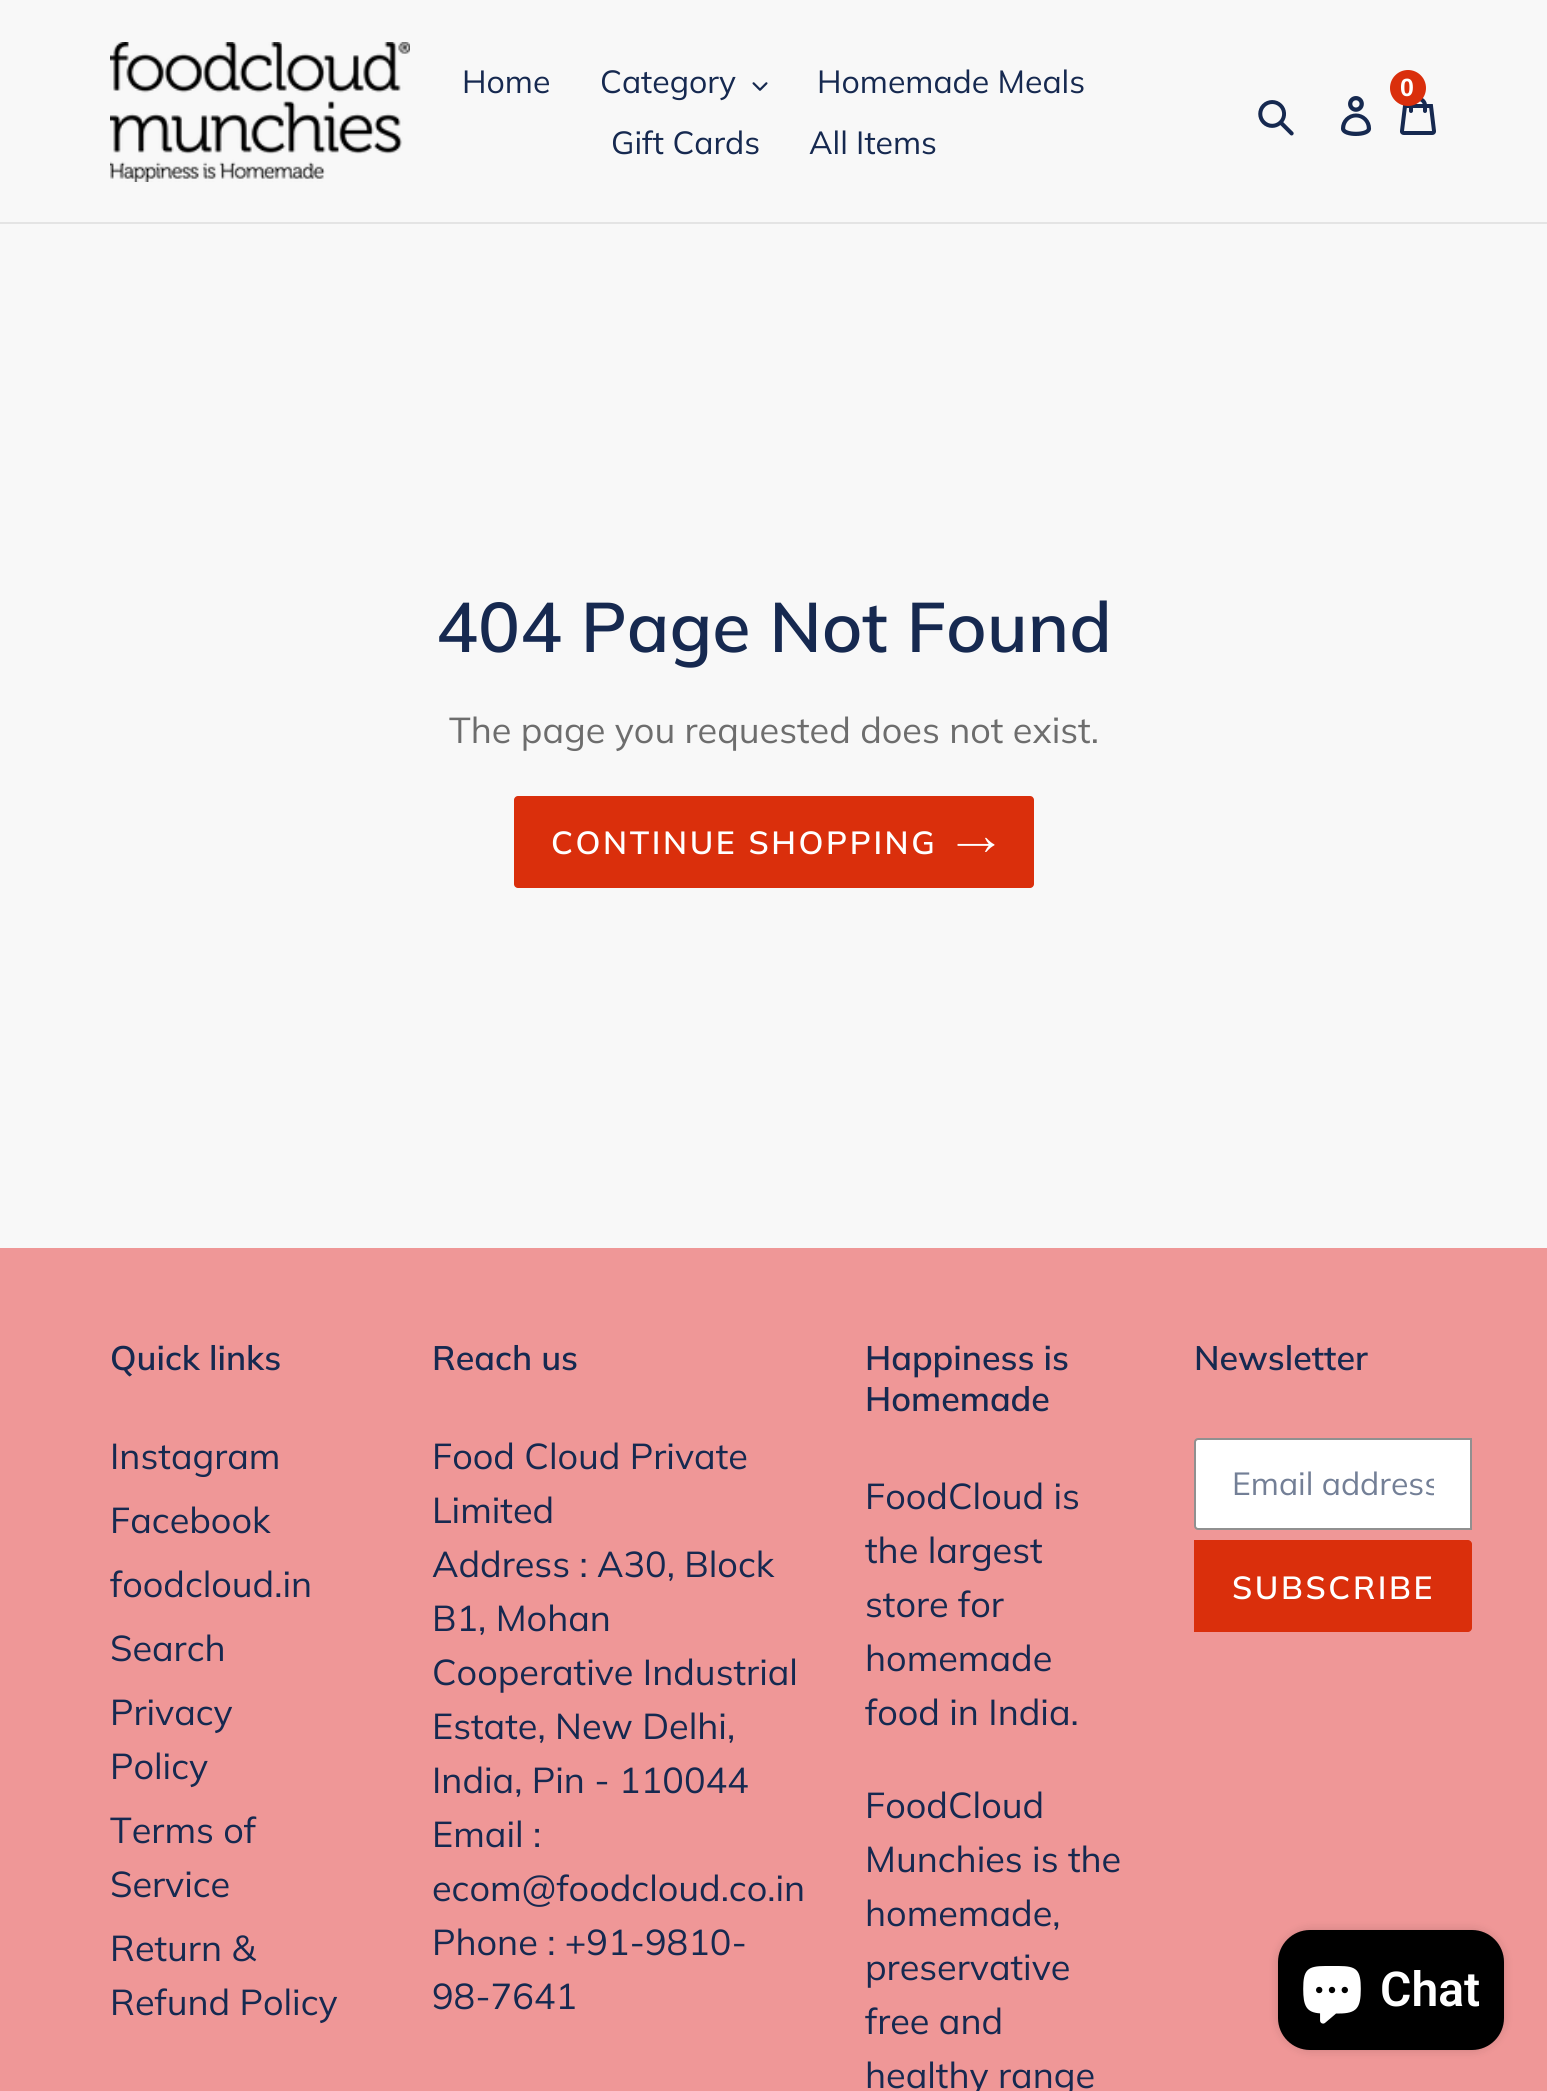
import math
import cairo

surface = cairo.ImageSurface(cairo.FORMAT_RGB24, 1547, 2091)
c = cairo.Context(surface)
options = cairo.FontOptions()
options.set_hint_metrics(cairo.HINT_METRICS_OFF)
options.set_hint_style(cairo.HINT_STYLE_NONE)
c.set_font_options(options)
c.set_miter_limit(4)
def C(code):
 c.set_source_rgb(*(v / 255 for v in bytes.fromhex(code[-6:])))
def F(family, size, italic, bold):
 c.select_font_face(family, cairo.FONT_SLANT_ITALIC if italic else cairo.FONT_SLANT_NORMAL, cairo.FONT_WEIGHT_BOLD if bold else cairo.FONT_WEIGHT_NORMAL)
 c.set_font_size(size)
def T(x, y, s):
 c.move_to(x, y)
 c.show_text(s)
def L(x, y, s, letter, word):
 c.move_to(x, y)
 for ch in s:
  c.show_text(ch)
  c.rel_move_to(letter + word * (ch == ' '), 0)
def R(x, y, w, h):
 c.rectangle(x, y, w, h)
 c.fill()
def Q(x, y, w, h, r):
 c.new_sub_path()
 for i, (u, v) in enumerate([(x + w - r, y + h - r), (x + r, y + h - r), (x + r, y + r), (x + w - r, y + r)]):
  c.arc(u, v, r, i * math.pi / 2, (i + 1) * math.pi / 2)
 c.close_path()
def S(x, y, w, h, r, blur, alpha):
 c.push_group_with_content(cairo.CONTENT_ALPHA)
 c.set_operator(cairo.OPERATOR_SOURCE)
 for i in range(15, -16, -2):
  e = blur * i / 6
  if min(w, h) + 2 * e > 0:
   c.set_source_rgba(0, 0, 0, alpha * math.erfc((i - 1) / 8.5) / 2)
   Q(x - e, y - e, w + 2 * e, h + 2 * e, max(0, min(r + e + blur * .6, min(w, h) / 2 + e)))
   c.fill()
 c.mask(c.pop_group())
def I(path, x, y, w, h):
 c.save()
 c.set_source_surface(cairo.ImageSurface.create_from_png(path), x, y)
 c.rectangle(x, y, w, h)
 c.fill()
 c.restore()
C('f8f8f8')
c.paint()
C('e4e4e4')
R(0,222,1547,2)
I('1.png',110,42,300,140)
F('Muli',32,0,0)
C('162950')
T(462,93,'Home')
T(600,93,'Category')
I('2.png',752,82,16,9)
T(817,93,'Homemade Meals')
T(611,154,'Gift Cards')
T(809,154,'All Items')
I('3.png',1400,98,36,37)
C('da2f0c')
c.arc(1408,88,18,0,2 * math.pi)
c.fill()
F('Liberation Sans',25,0,1)
C('ffffff')
T(1400,96,'0')
I('4.png',1258,100,36,36)
I('5.png',1341,96,31,40)
F('Muli SemiBold',70,0,0)
C('162950')
T(436,652,'404 Page Not Found')
F('Muli',36,0,0)
C('6d6d6d')
T(449,743,'The page you requested does not exist.')
C('da2f0c')
Q(514,796,520,92,4)
c.fill()
F('Muli SemiBold',32,0,0)
C('ffffff')
L(551,854,'CONTINUE SHOPPING',2.6,0)
I('6.png',957,837,38,15)
C('ef9797')
R(0,1248,1547,843)
F('Muli SemiBold',34,0,0)
C('162950')
T(110,1370,'Quick links')
F('Muli',36,0,0)
T(110,1469,'Instagram')
T(110,1533,'Facebook')
T(110,1597,'foodcloud.in')
T(110,1661,'Search')
T(110,1725,'Privacy')
T(110,1779,'Policy')
T(110,1843,'Terms of')
T(110,1897,'Service')
T(110,1961,'Return &')
T(110,2015,'Refund Policy')
F('Muli SemiBold',34,0,0)
T(432,1370,'Reach us')
F('Muli',36,0,0)
T(432,1469,'Food Cloud Private')
T(432,1523,'Limited')
T(432,1577,'Address : A30, Block')
T(432,1631,'B1, Mohan')
T(432,1685,'Cooperative Industrial')
T(432,1739,'Estate, New Delhi,')
T(432,1793,'India, Pin - 110044')
T(432,1847,'Email :')
T(432,1901,'ecom@foodcloud.co.in')
T(432,1955,'Phone : +91-9810-')
T(432,2009,'98-7641')
F('Muli SemiBold',34,0,0)
T(865,1370,'Happiness is')
T(865,1411,'Homemade')
F('Muli',36,0,0)
T(865,1509,'FoodCloud is')
T(865,1563,'the largest')
T(865,1617,'store for')
T(865,1671,'homemade')
T(865,1725,'food in India.')
T(865,1818,'FoodCloud')
T(865,1872,'Munchies is the')
T(865,1926,'homemade,')
T(865,1980,'preservative')
T(865,2034,'free and')
T(865,2088,'healthy range')
F('Muli SemiBold',34,0,0)
T(1194,1370,'Newsletter')
C('ffffff')
c.new_path()
c.move_to(1198,1439)
c.line_to(1471,1439)
c.line_to(1471,1529)
c.line_to(1198,1529)
c.curve_to(1196.5,1529,1195,1527.5,1195,1526)
c.line_to(1195,1442)
c.curve_to(1195,1440.5,1196.5,1439,1198,1439)
c.close_path()
c.fill_preserve()
C('909090')
c.stroke()
c.save()
c.rectangle(1232,1464,202,40)
c.clip()
F('Muli',32,0,0)
C('737f96')
T(1232,1495,'Email address')
c.restore()
C('da2f0c')
c.new_path()
c.move_to(1194,1540)
c.line_to(1468,1540)
c.curve_to(1470,1540,1472,1542,1472,1544)
c.line_to(1472,1628)
c.curve_to(1472,1630,1470,1632,1468,1632)
c.line_to(1194,1632)
c.close_path()
c.fill()
F('Muli SemiBold',32,0,0)
C('ffffff')
L(1232,1599,'SUBSCRIBE',2.6,0)
C('000000')
S(1278,1930,226,120,32,5,.15)
C('000000')
Q(1278,1930,226,120,32)
c.fill()
I('7.png',1303,1966,58,58)
F('Roboto SemiBold',48,0,0)
C('ffffff')
T(1380,2006,'Chat')
surface.write_to_png('o.png')
